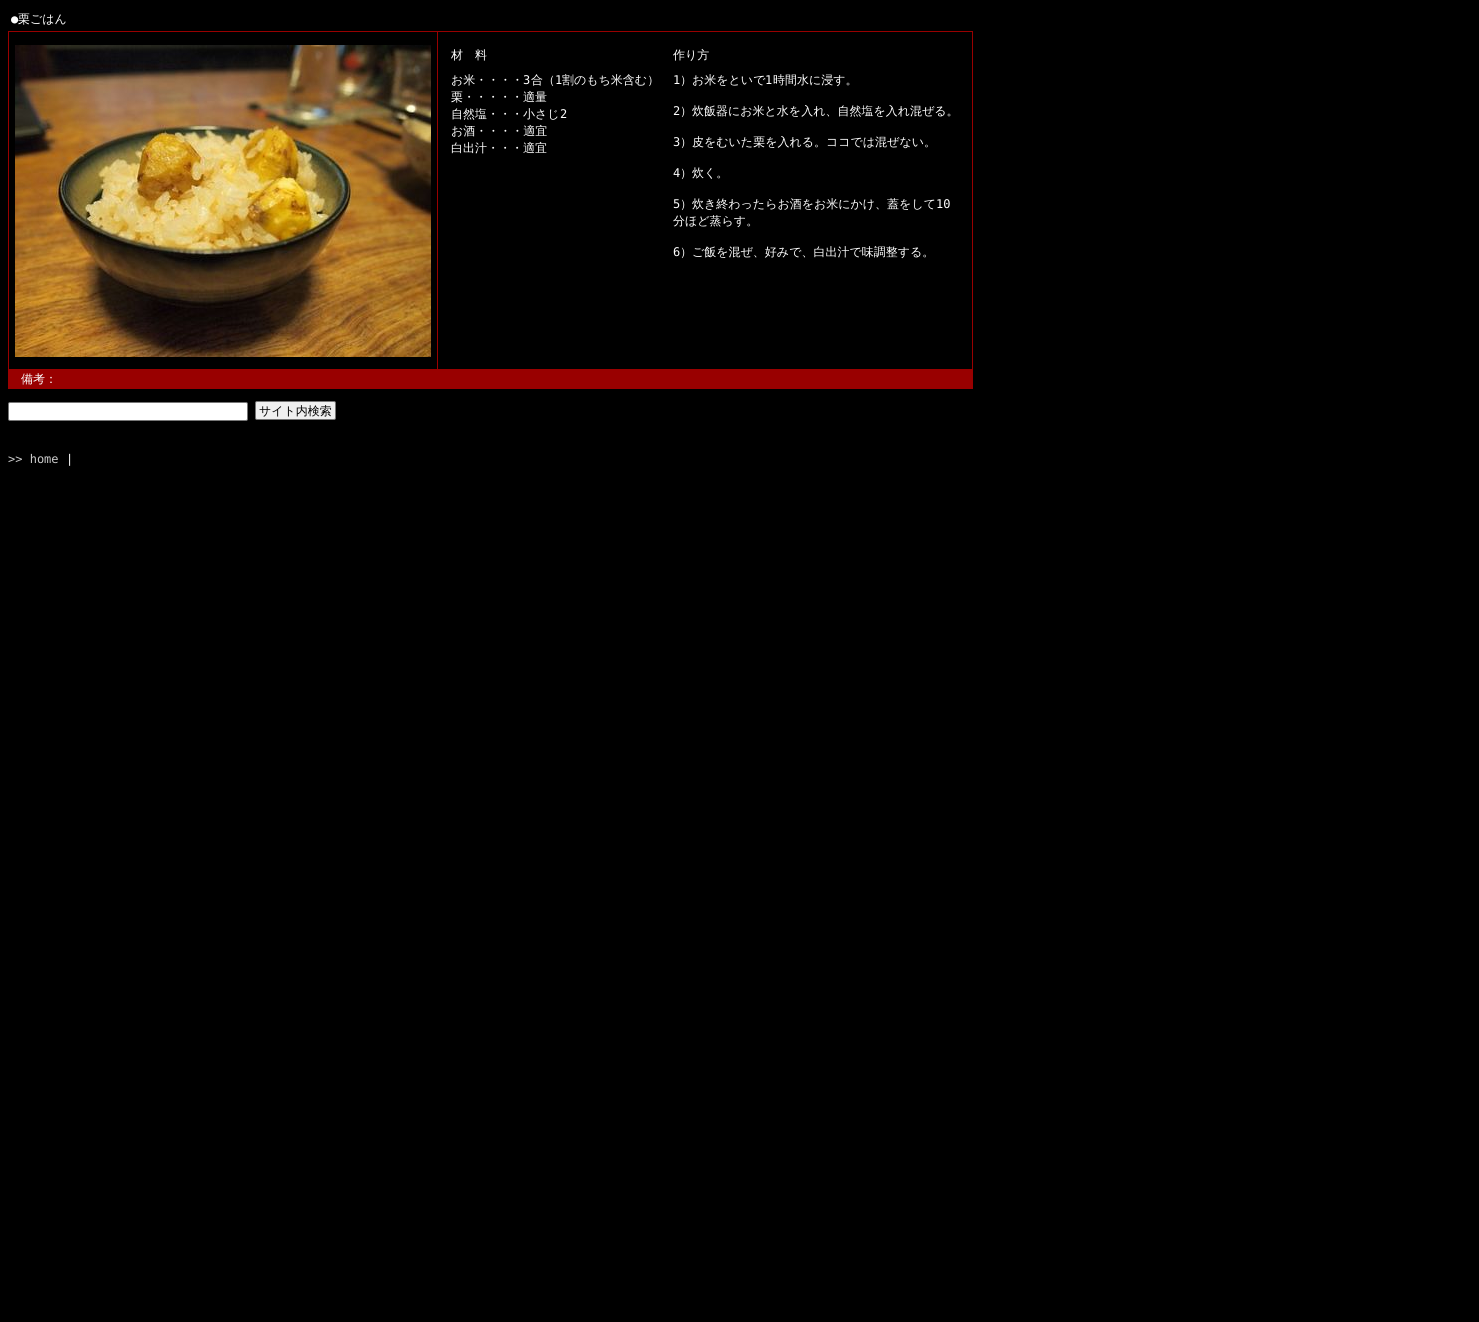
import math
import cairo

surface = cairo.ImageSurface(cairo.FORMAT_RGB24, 1479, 1322)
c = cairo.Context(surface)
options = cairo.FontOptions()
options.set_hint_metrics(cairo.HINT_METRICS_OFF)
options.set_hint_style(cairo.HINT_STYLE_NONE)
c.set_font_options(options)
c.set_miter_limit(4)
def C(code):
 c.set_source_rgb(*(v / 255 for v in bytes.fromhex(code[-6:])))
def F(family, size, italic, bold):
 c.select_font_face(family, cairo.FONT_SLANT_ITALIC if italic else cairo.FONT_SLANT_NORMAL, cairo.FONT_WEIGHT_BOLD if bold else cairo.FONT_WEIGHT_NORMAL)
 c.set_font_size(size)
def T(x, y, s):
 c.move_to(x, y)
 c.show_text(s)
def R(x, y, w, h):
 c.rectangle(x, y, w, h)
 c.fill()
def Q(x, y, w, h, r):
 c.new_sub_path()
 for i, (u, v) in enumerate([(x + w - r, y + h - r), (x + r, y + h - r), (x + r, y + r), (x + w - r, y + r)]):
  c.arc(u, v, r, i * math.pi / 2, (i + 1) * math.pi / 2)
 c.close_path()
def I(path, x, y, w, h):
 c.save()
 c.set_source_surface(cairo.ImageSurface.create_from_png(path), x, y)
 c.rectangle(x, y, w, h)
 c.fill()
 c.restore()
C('000000')
c.paint()
F('DejaVu Sans Mono',12,0,0)
C('ffffff')
T(11,23,'●')
F('WenQuanYi Zen Hei Medium',12,0,0)
T(18,23,'栗ごはん')
C('990000')
R(8,31,965,358)
C('000000')
R(9,32,428,337)
I('1.png',15,45,416,312)
R(438,32,534,337)
C('ffffff')
T(451,59,'材　料')
T(451,84,'お米・・・・')
F('DejaVu Sans Mono',12,0,0)
T(523,84,'3')
F('WenQuanYi Zen Hei Medium',12,0,0)
T(531,84,'合（')
F('DejaVu Sans Mono',12,0,0)
T(555,84,'1')
F('WenQuanYi Zen Hei Medium',12,0,0)
T(562,84,'割のもち米含む）')
T(451,101,'栗・・・・・適量')
T(451,118,'自然塩・・・小さじ')
F('DejaVu Sans Mono',12,0,0)
T(560,118,'2')
F('WenQuanYi Zen Hei Medium',12,0,0)
T(451,135,'お酒・・・・適宜')
T(451,152,'白出汁・・・適宜')
T(673,59,'作り方')
F('DejaVu Sans Mono',12,0,0)
T(673,84,'1')
F('WenQuanYi Zen Hei Medium',12,0,0)
T(680,84,'）お米をといで')
F('DejaVu Sans Mono',12,0,0)
T(765,84,'1')
F('WenQuanYi Zen Hei Medium',12,0,0)
T(773,84,'時間水に浸す。')
F('DejaVu Sans Mono',12,0,0)
T(673,115,'2')
F('WenQuanYi Zen Hei Medium',12,0,0)
T(680,115,'）炊飯器にお米と水を入れ、自然塩を入れ混ぜる。')
F('DejaVu Sans Mono',12,0,0)
T(673,146,'3')
F('WenQuanYi Zen Hei Medium',12,0,0)
T(680,146,'）皮をむいた栗を入れる。ココでは混ぜない。')
F('DejaVu Sans Mono',12,0,0)
T(673,177,'4')
F('WenQuanYi Zen Hei Medium',12,0,0)
T(680,177,'）炊く。')
F('DejaVu Sans Mono',12,0,0)
T(673,208,'5')
F('WenQuanYi Zen Hei Medium',12,0,0)
T(680,208,'）炊き終わったらお酒をお米にかけ、蓋をして')
F('DejaVu Sans Mono',12,0,0)
T(936,208,'10')
F('WenQuanYi Zen Hei Medium',12,0,0)
T(673,225,'分ほど蒸らす。')
F('DejaVu Sans Mono',12,0,0)
T(673,256,'6')
F('WenQuanYi Zen Hei Medium',12,0,0)
T(680,256,'）ご飯を混ぜ、好みで、白出汁で味調整する。')
T(21,383,'備考：')
Q(8.5,402.5,239,18,1.5)
c.fill_preserve()
C('767676')
c.set_line_width(1)
c.stroke()
C('efefef')
Q(255.5,401.5,80,18,1.5)
c.fill_preserve()
C('767676')
c.stroke()
C('000000')
T(259,415,'サイト内検索')
F('DejaVu Sans Mono',12,0,0)
C('cccccc')
T(8,463,'>> home')
C('ffffff')
T(66,463,'|')
surface.write_to_png('o.png')
